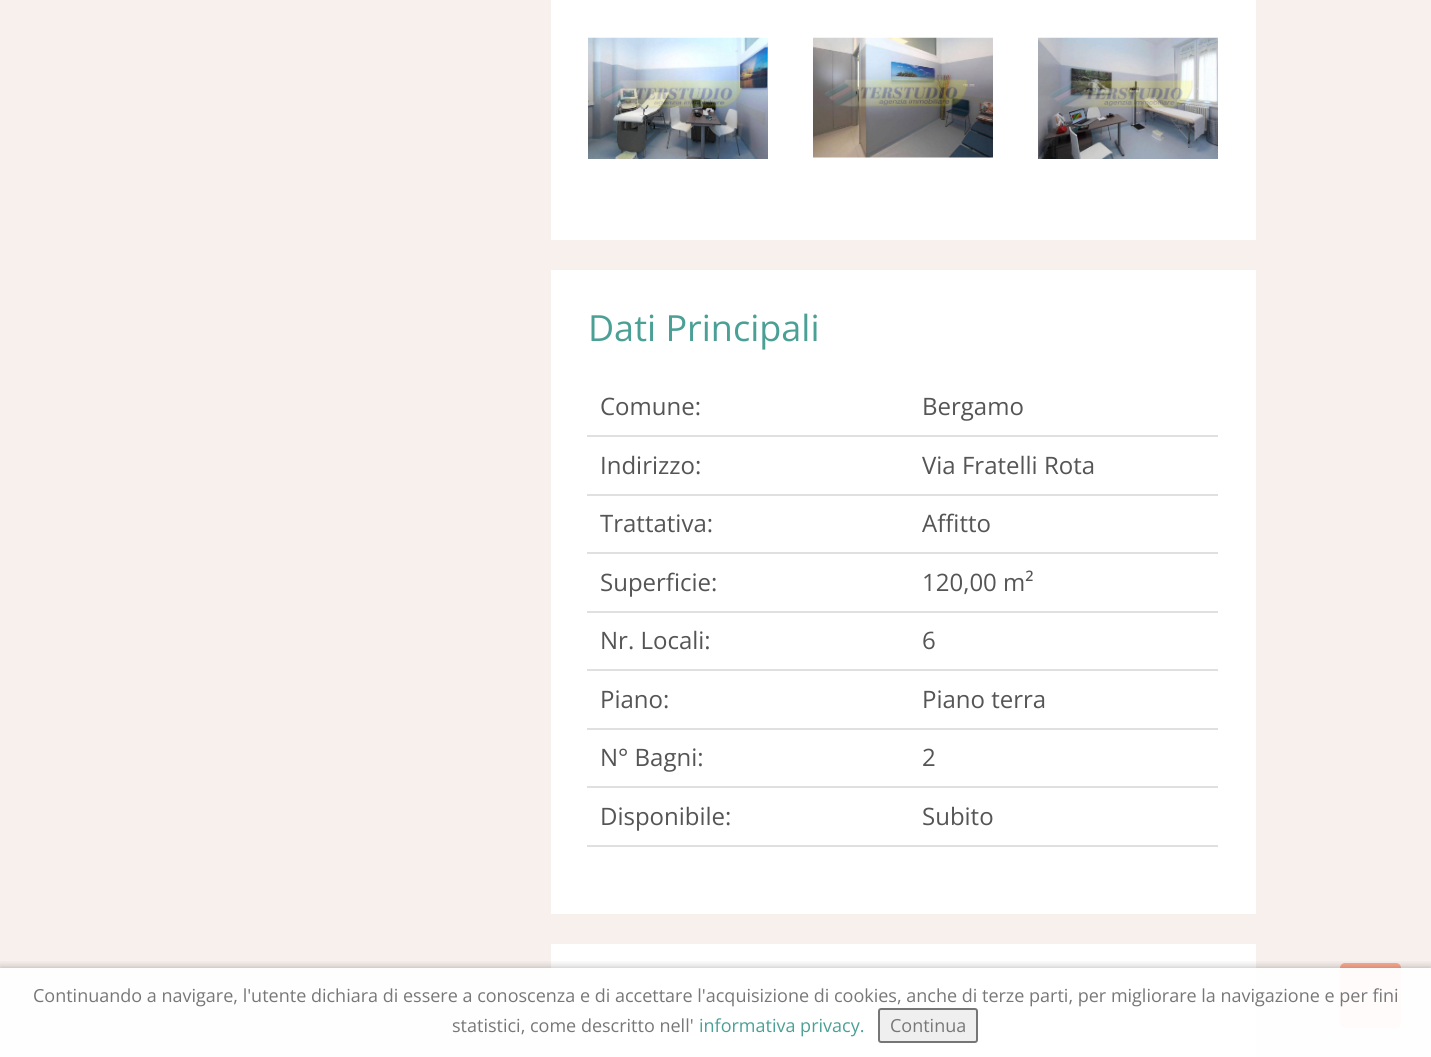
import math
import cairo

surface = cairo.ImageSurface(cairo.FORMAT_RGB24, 1431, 1057)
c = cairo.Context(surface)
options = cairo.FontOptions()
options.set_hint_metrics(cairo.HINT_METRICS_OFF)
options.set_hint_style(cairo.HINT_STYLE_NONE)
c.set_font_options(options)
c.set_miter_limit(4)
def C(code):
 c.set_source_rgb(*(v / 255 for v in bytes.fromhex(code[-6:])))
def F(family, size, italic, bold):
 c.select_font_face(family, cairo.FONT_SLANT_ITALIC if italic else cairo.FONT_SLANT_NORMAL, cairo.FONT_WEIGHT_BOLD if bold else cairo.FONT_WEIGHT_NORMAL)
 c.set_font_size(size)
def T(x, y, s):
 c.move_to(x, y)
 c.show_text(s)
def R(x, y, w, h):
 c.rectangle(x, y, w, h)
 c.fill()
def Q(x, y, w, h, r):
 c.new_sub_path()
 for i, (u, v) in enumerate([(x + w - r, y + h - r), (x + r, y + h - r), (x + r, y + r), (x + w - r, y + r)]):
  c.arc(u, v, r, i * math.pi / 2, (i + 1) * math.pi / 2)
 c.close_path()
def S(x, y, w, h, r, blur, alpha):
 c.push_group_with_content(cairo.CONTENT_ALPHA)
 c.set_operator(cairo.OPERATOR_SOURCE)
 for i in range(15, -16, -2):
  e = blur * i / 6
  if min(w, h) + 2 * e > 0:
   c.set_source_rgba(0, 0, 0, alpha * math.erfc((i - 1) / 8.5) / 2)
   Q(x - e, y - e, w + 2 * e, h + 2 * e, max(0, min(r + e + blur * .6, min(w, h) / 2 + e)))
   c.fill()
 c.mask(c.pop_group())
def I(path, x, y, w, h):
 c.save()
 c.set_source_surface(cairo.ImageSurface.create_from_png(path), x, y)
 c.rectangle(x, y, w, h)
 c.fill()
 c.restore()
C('f7f0ed')
c.paint()
C('ffffff')
R(551,0,705,240)
I('1.png',588,37,180,122)
I('2.png',813,37,180,121)
I('3.png',1038,37,180,122)
R(551,270,705,644)
F('Open Sans',36,0,0)
C('4ba096')
T(588,341,'Dati Principali')
F('Open Sans',24,0,0)
C('555555')
T(600,415,'Comune:')
C('e0e0e0')
R(587,435,631,2)
C('555555')
T(922,415,'Bergamo')
T(600,474,'Indirizzo:')
C('e0e0e0')
R(587,494,631,2)
C('555555')
T(922,474,'Via Fratelli Rota')
T(600,532,'Trattativa:')
C('e0e0e0')
R(587,552,631,2)
C('555555')
T(922,532,'Affitto')
T(600,591,'Superficie:')
C('e0e0e0')
R(587,611,631,2)
C('555555')
T(922,591,'120,00 m²')
T(600,649,'Nr. Locali:')
C('e0e0e0')
R(587,669,631,2)
C('555555')
T(922,649,'6')
T(600,708,'Piano:')
C('e0e0e0')
R(587,728,631,2)
C('555555')
T(922,708,'Piano terra')
T(600,766,'N° Bagni:')
C('e0e0e0')
R(587,786,631,2)
C('555555')
T(922,766,'2')
T(600,825,'Disponibile:')
C('e0e0e0')
R(587,845,631,2)
C('555555')
T(922,825,'Subito')
C('ffffff')
R(551,944,705,113)
C('fdaa8f')
Q(1340,963,61,65,5)
c.fill()
I('4.png',1358,988,27,16)
c.save()
c.rectangle(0,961,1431,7)
c.clip()
C('000000')
S(0,968,1431,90,0,4.5,.3)
c.restore()
c.set_source_rgba(1,1,1,0.95)
R(0,968,1431,89)
F('Open Sans',18,0,0)
C('777777')
T(33,1002,'Continuando a navigare, l\'utente dichiara di essere a conoscenza e di accettare l\'acquisizione di cookies, anche di terze parti, per migliorare la navigazione e per fini')
T(452,1032,'statistici, come descritto nell\'')
C('4ba096')
T(699,1032,'informativa privacy.')
C('efefef')
Q(879,1009,98,33,2)
c.fill_preserve()
C('767676')
c.stroke()
C('777777')
T(890,1032,'Continua')
surface.write_to_png('o.png')
